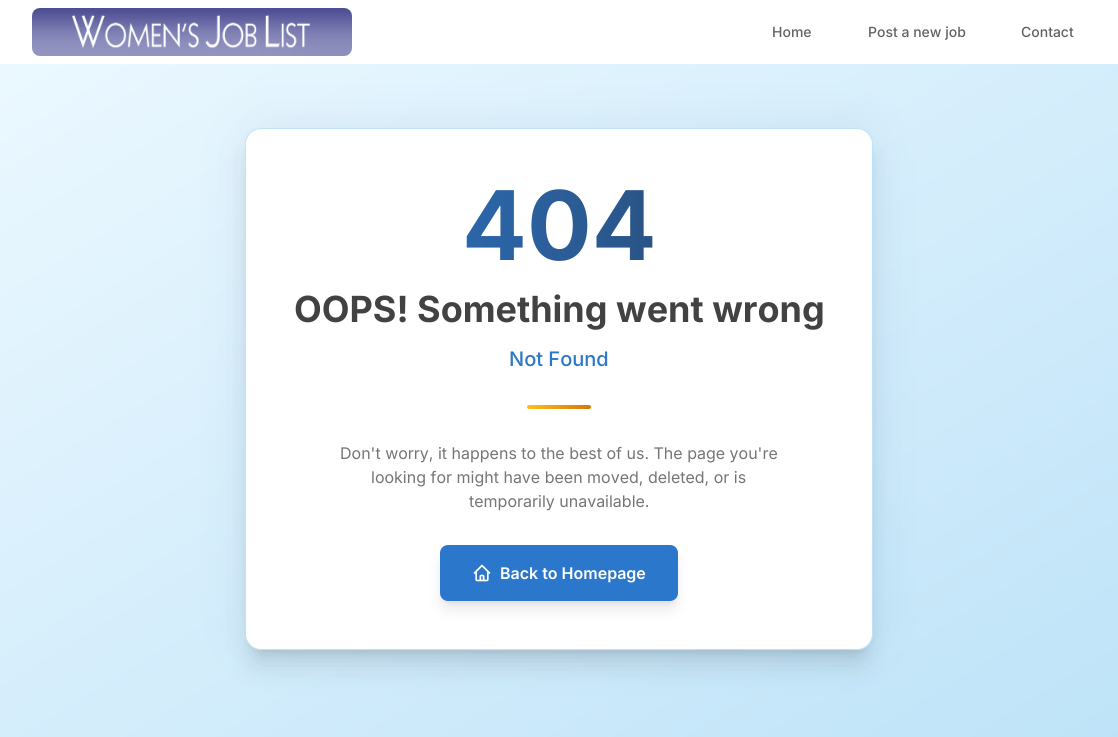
import math
import cairo

surface = cairo.ImageSurface(cairo.FORMAT_RGB24, 1118, 737)
c = cairo.Context(surface)
options = cairo.FontOptions()
options.set_hint_metrics(cairo.HINT_METRICS_OFF)
options.set_hint_style(cairo.HINT_STYLE_NONE)
c.set_font_options(options)
c.set_miter_limit(4)
def C(code):
 c.set_source_rgb(*(v / 255 for v in bytes.fromhex(code[-6:])))
def F(family, size, italic, bold):
 c.select_font_face(family, cairo.FONT_SLANT_ITALIC if italic else cairo.FONT_SLANT_NORMAL, cairo.FONT_WEIGHT_BOLD if bold else cairo.FONT_WEIGHT_NORMAL)
 c.set_font_size(size)
def T(x, y, s):
 c.move_to(x, y)
 c.show_text(s)
def R(x, y, w, h):
 c.rectangle(x, y, w, h)
 c.fill()
def Q(x, y, w, h, r):
 c.new_sub_path()
 for i, (u, v) in enumerate([(x + w - r, y + h - r), (x + r, y + h - r), (x + r, y + r), (x + w - r, y + r)]):
  c.arc(u, v, r, i * math.pi / 2, (i + 1) * math.pi / 2)
 c.close_path()
def S(x, y, w, h, r, blur, alpha):
 c.push_group_with_content(cairo.CONTENT_ALPHA)
 c.set_operator(cairo.OPERATOR_SOURCE)
 for i in range(15, -16, -2):
  e = blur * i / 6
  if min(w, h) + 2 * e > 0:
   c.set_source_rgba(0, 0, 0, alpha * math.erfc((i - 1) / 8.5) / 2)
   Q(x - e, y - e, w + 2 * e, h + 2 * e, max(0, min(r + e + blur * .6, min(w, h) / 2 + e)))
   c.fill()
 c.mask(c.pop_group())
def I(path, x, y, w, h):
 c.save()
 c.set_source_surface(cairo.ImageSurface.create_from_png(path), x, y)
 c.rectangle(x, y, w, h)
 c.fill()
 c.restore()
C('ffffff')
c.paint()
I('1.png',32,8,320,48)
I('2.png',72,15,239,34)
F('Inter Medium',14,0,0)
C('616161')
T(772,37,'Home')
T(868,37,'Post a new job')
T(1021,37,'Contact')
gradient = cairo.LinearGradient(256,-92,862,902)
gradient.add_color_stop_rgba(0,0.922,0.973,1,1)
gradient.add_color_stop_rgba(1,0.745,0.89,0.973,1)
c.set_source(gradient)
R(0,64,1118,673)
C('2b5d98')
S(245,128,628,522,24,24,.1)
C('000000')
S(251,142,616,510,10,5,.1)
S(250,153,618,512,11,12.5,.1)
C('ffffff')
Q(245.5,128.5,627,521,15.5)
c.fill_preserve()
C('bee3f8')
c.set_line_width(1)
c.stroke()
F('Inter',96,0,1)
gradient = cairo.LinearGradient(294,225,824,225)
gradient.add_color_stop_rgba(0,0.169,0.467,0.796,1)
gradient.add_color_stop_rgba(1,0.165,0.263,0.396,1)
c.set_source(gradient)
T(462,260,'404')
F('Inter',36,0,1)
C('424242')
T(294,322,'OOPS! Something went wrong')
F('Inter Medium',20,0,0)
C('2b77cb')
T(509,366,'Not Found')
gradient = cairo.LinearGradient(527,407,591,407)
gradient.add_color_stop_rgba(0,0.984,0.749,0.141,1)
gradient.add_color_stop_rgba(1,0.851,0.467,0.024,1)
c.set_source(gradient)
Q(527,405,64,4,2)
c.fill()
F('Inter',16,0,0)
C('757575')
T(340,459,'Don\'t worry, it happens to the best of us. The page you\'re')
T(371,483,'looking for might have been moved, deleted, or is')
T(469,507,'temporarily unavailable.')
C('000000')
S(444,553,230,48,4,3,.1)
S(443,558,232,50,5,7.5,.1)
C('2b77cb')
Q(440,545,238,56,8)
c.fill()
I('3.png',473,564,18,18)
F('Inter SemiBold',16,0,0)
C('ffffff')
T(500,579,'Back to Homepage')
surface.write_to_png('o.png')
